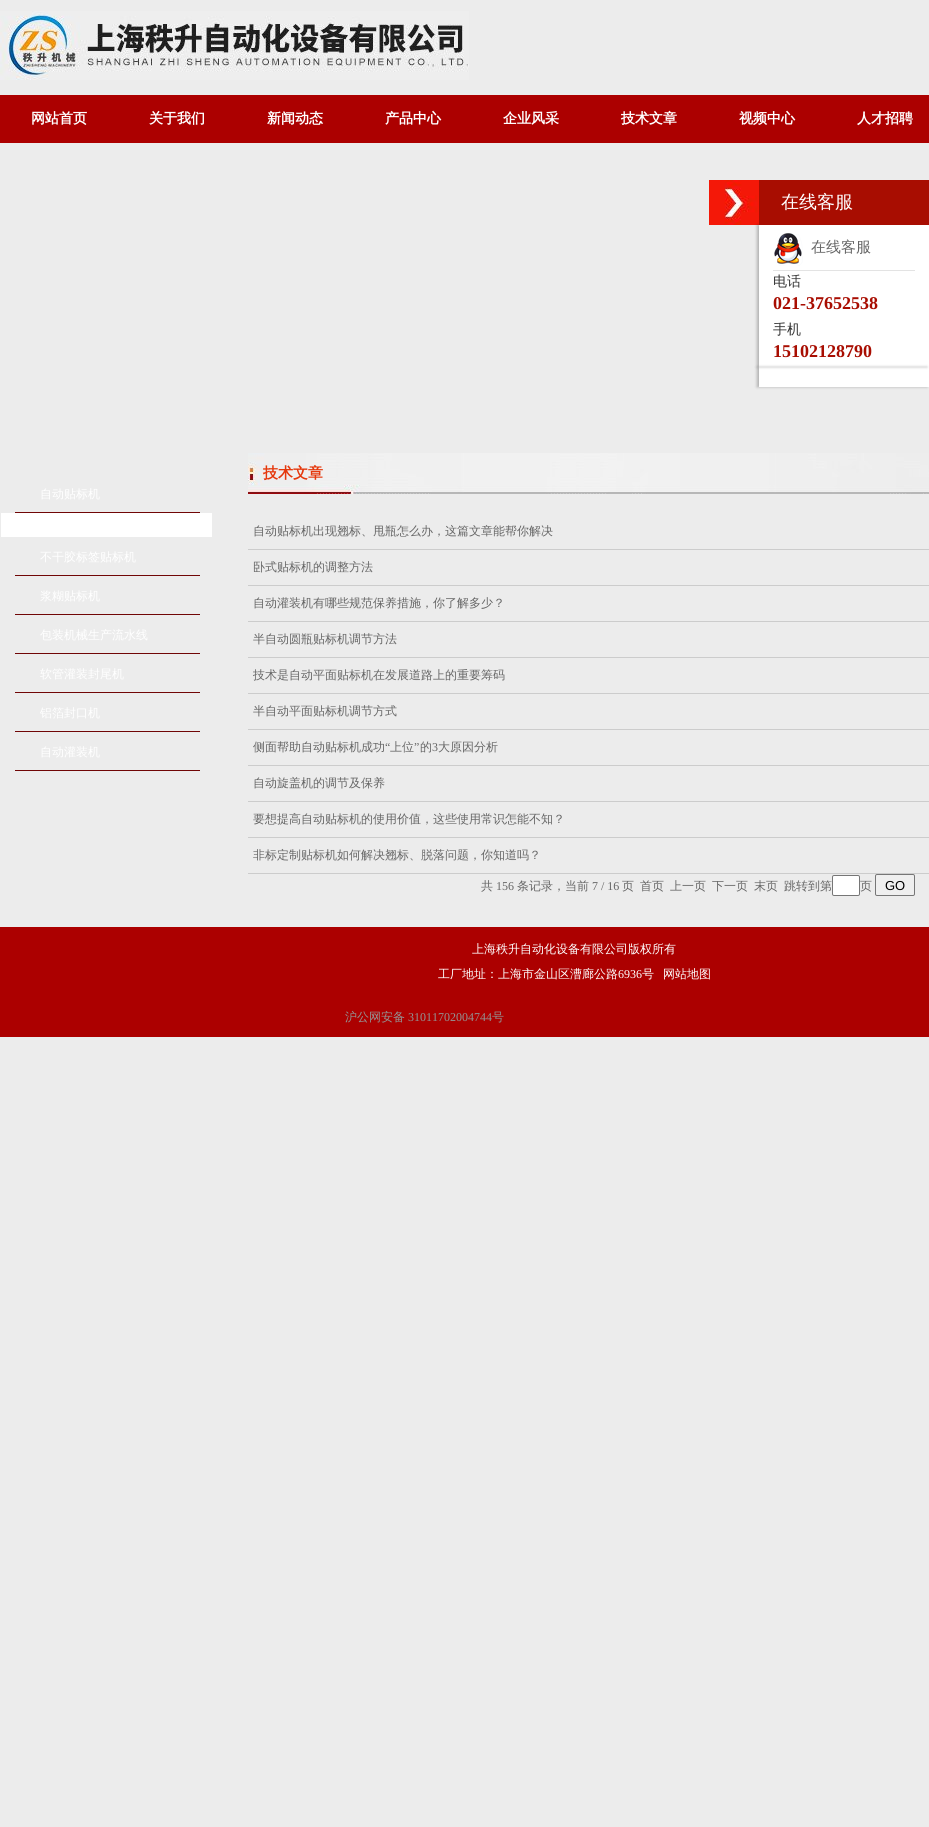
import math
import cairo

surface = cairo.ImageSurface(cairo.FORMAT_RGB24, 929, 1827)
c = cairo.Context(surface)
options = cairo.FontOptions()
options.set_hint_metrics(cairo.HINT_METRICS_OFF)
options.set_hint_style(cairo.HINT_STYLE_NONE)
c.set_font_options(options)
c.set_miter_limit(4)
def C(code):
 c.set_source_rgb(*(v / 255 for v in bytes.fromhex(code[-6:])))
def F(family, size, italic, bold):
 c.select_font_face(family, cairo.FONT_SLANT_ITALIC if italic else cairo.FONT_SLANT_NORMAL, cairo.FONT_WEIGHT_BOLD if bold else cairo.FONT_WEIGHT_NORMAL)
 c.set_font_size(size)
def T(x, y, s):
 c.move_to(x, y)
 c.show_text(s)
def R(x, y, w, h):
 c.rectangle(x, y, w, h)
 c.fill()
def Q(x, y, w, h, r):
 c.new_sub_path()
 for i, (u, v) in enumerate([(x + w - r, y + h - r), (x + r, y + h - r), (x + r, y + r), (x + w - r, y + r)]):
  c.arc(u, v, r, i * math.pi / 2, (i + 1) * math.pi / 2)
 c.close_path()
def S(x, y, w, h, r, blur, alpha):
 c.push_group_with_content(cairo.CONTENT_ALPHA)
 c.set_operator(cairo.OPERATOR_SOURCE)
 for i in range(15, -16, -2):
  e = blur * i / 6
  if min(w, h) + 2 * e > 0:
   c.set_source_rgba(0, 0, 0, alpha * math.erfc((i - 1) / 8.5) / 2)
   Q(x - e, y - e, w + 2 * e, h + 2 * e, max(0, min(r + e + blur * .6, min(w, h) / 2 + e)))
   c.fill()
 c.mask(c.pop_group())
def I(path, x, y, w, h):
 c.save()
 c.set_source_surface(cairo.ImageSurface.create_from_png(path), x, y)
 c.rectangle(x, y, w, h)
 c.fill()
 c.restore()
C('ececec')
c.paint()
I('1.png',0,11,469,69)
C('ac0000')
R(0,95,929,48)
F('WenQuanYi Zen Hei',14,0,1)
C('ffffff')
T(31,123,'网站首页')
T(149,123,'关于我们')
T(267,123,'新闻动态')
T(385,123,'产品中心')
T(503,123,'企业风采')
T(621,123,'技术文章')
T(739,123,'视频中心')
T(857,123,'人才招聘')
C('ac0000')
R(0,927,929,110)
I('2.png',709,180,50,45)
C('ffffff')
R(759,225,170,162)
c.save()
c.set_fill_rule(cairo.FILL_RULE_EVEN_ODD)
c.new_path()
c.move_to(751,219)
c.line_to(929,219)
c.line_to(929,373)
c.line_to(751,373)
c.close_path()
c.move_to(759,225)
c.line_to(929,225)
c.line_to(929,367)
c.line_to(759,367)
c.close_path()
c.clip()
C('000000')
S(757,225,170,142,0,1.5,.25)
c.restore()
C('a80d01')
R(759,180,170,45)
F('WenQuanYi Zen Hei Medium',18,0,0)
C('ffffff')
T(781,208,'在线客服')
C('e3e3e3')
R(773,270,142,1)
I('3.png',774,233,29,33)
F('WenQuanYi Zen Hei Medium',15,0,0)
C('666666')
T(811,252,'在线客服')
F('WenQuanYi Zen Hei Medium',14,0,0)
C('333333')
T(773,286,'电话')
F('Liberation Serif',18,0,1)
C('a80d01')
T(773,309,'021-37652538')
F('WenQuanYi Zen Hei Medium',14,0,0)
C('333333')
T(773,334,'手机')
F('Liberation Serif',18,0,1)
C('a80d01')
T(773,357,'15102128790')
c.save()
c.set_fill_rule(cairo.FILL_RULE_EVEN_ODD)
c.new_path()
c.move_to(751,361)
c.line_to(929,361)
c.line_to(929,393)
c.line_to(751,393)
c.close_path()
c.move_to(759,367)
c.line_to(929,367)
c.line_to(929,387)
c.line_to(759,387)
c.close_path()
c.clip()
C('000000')
S(757,367,170,20,0,1.5,.25)
c.restore()
F('WenQuanYi Zen Hei Medium',12,0,0)
C('ffffff')
T(472,953,'上海秩升自动化设备有限公司版权所有')
T(438,978,'工厂地址：上海市金山区漕廊公路')
F('Liberation Serif',12,0,0)
T(618,978,'6936')
F('WenQuanYi Zen Hei Medium',12,0,0)
T(642,978,'号')
T(663,978,'网站地图')
C('939393')
T(345,1021,'沪公网安备')
F('Liberation Serif',12,0,0)
T(408,1021,'31011702004744')
F('WenQuanYi Zen Hei Medium',12,0,0)
T(492,1021,'号')
C('700606')
R(15,512,185,1)
C('ffffff')
T(40,498,'自动贴标机')
R(1,513,211,24)
C('700606')
R(15,575,185,1)
C('ffffff')
T(40,561,'不干胶标签贴标机')
C('700606')
R(15,614,185,1)
C('ffffff')
T(40,600,'浆糊贴标机')
C('700606')
R(15,653,185,1)
C('ffffff')
T(40,639,'包装机械生产流水线')
C('700606')
R(15,692,185,1)
C('ffffff')
T(40,678,'软管灌装封尾机')
C('700606')
R(15,731,185,1)
C('ffffff')
T(40,717,'铝箔封口机')
C('700606')
R(15,770,185,1)
C('ffffff')
T(40,756,'自动灌装机')
I('4.png',248,453,681,41)
F('WenQuanYi Zen Hei',15,0,1)
C('e5370b')
T(263,478,'技术文章')
C('cccccc')
R(248,549,681,1)
F('WenQuanYi Zen Hei Medium',12,0,0)
C('666666')
T(253,535,'自动贴标机出现翘标、甩瓶怎么办，这篇文章能帮你解决')
C('cccccc')
R(248,585,681,1)
C('666666')
T(253,571,'卧式贴标机的调整方法')
C('cccccc')
R(248,621,681,1)
C('666666')
T(253,607,'自动灌装机有哪些规范保养措施，你了解多少？')
C('cccccc')
R(248,657,681,1)
C('666666')
T(253,643,'半自动圆瓶贴标机调节方法')
C('cccccc')
R(248,693,681,1)
C('666666')
T(253,679,'技术是自动平面贴标机在发展道路上的重要筹码')
C('cccccc')
R(248,729,681,1)
C('666666')
T(253,715,'半自动平面贴标机调节方式')
C('cccccc')
R(248,765,681,1)
C('666666')
T(253,751,'侧面帮助自动贴标机成功')
F('Liberation Serif',12,0,0)
T(385,751,'“')
F('WenQuanYi Zen Hei Medium',12,0,0)
T(390,751,'上位')
F('Liberation Serif',12,0,0)
T(414,751,'”')
F('WenQuanYi Zen Hei Medium',12,0,0)
T(420,751,'的')
F('Liberation Serif',12,0,0)
T(432,751,'3')
F('WenQuanYi Zen Hei Medium',12,0,0)
T(438,751,'大原因分析')
C('cccccc')
R(248,801,681,1)
C('666666')
T(253,787,'自动旋盖机的调节及保养')
C('cccccc')
R(248,837,681,1)
C('666666')
T(253,823,'要想提高自动贴标机的使用价值，这些使用常识怎能不知？')
C('cccccc')
R(248,873,681,1)
C('666666')
T(253,859,'非标定制贴标机如何解决翘标、脱落问题，你知道吗？')
T(481,890,'共')
F('Liberation Serif',12,0,0)
T(496,890,'156')
F('WenQuanYi Zen Hei Medium',12,0,0)
T(517,890,'条记录，当前')
F('Liberation Serif',12,0,0)
T(592,890,'7 / 16')
F('WenQuanYi Zen Hei Medium',12,0,0)
T(622,890,'页')
T(640,890,'首页')
T(670,890,'上一页')
T(712,890,'下一页')
T(754,890,'末页')
T(784,890,'跳转到第')
C('ffffff')
Q(832.5,875.5,27,20,1.5)
c.fill_preserve()
C('767676')
c.set_line_width(1)
c.stroke()
C('666666')
T(860,890,'页')
C('efefef')
Q(875.5,874.5,39,21,1.5)
c.fill_preserve()
C('767676')
c.stroke()
F('Liberation Sans',13,0,0)
C('000000')
T(885,890,'GO')
surface.write_to_png('o.png')
